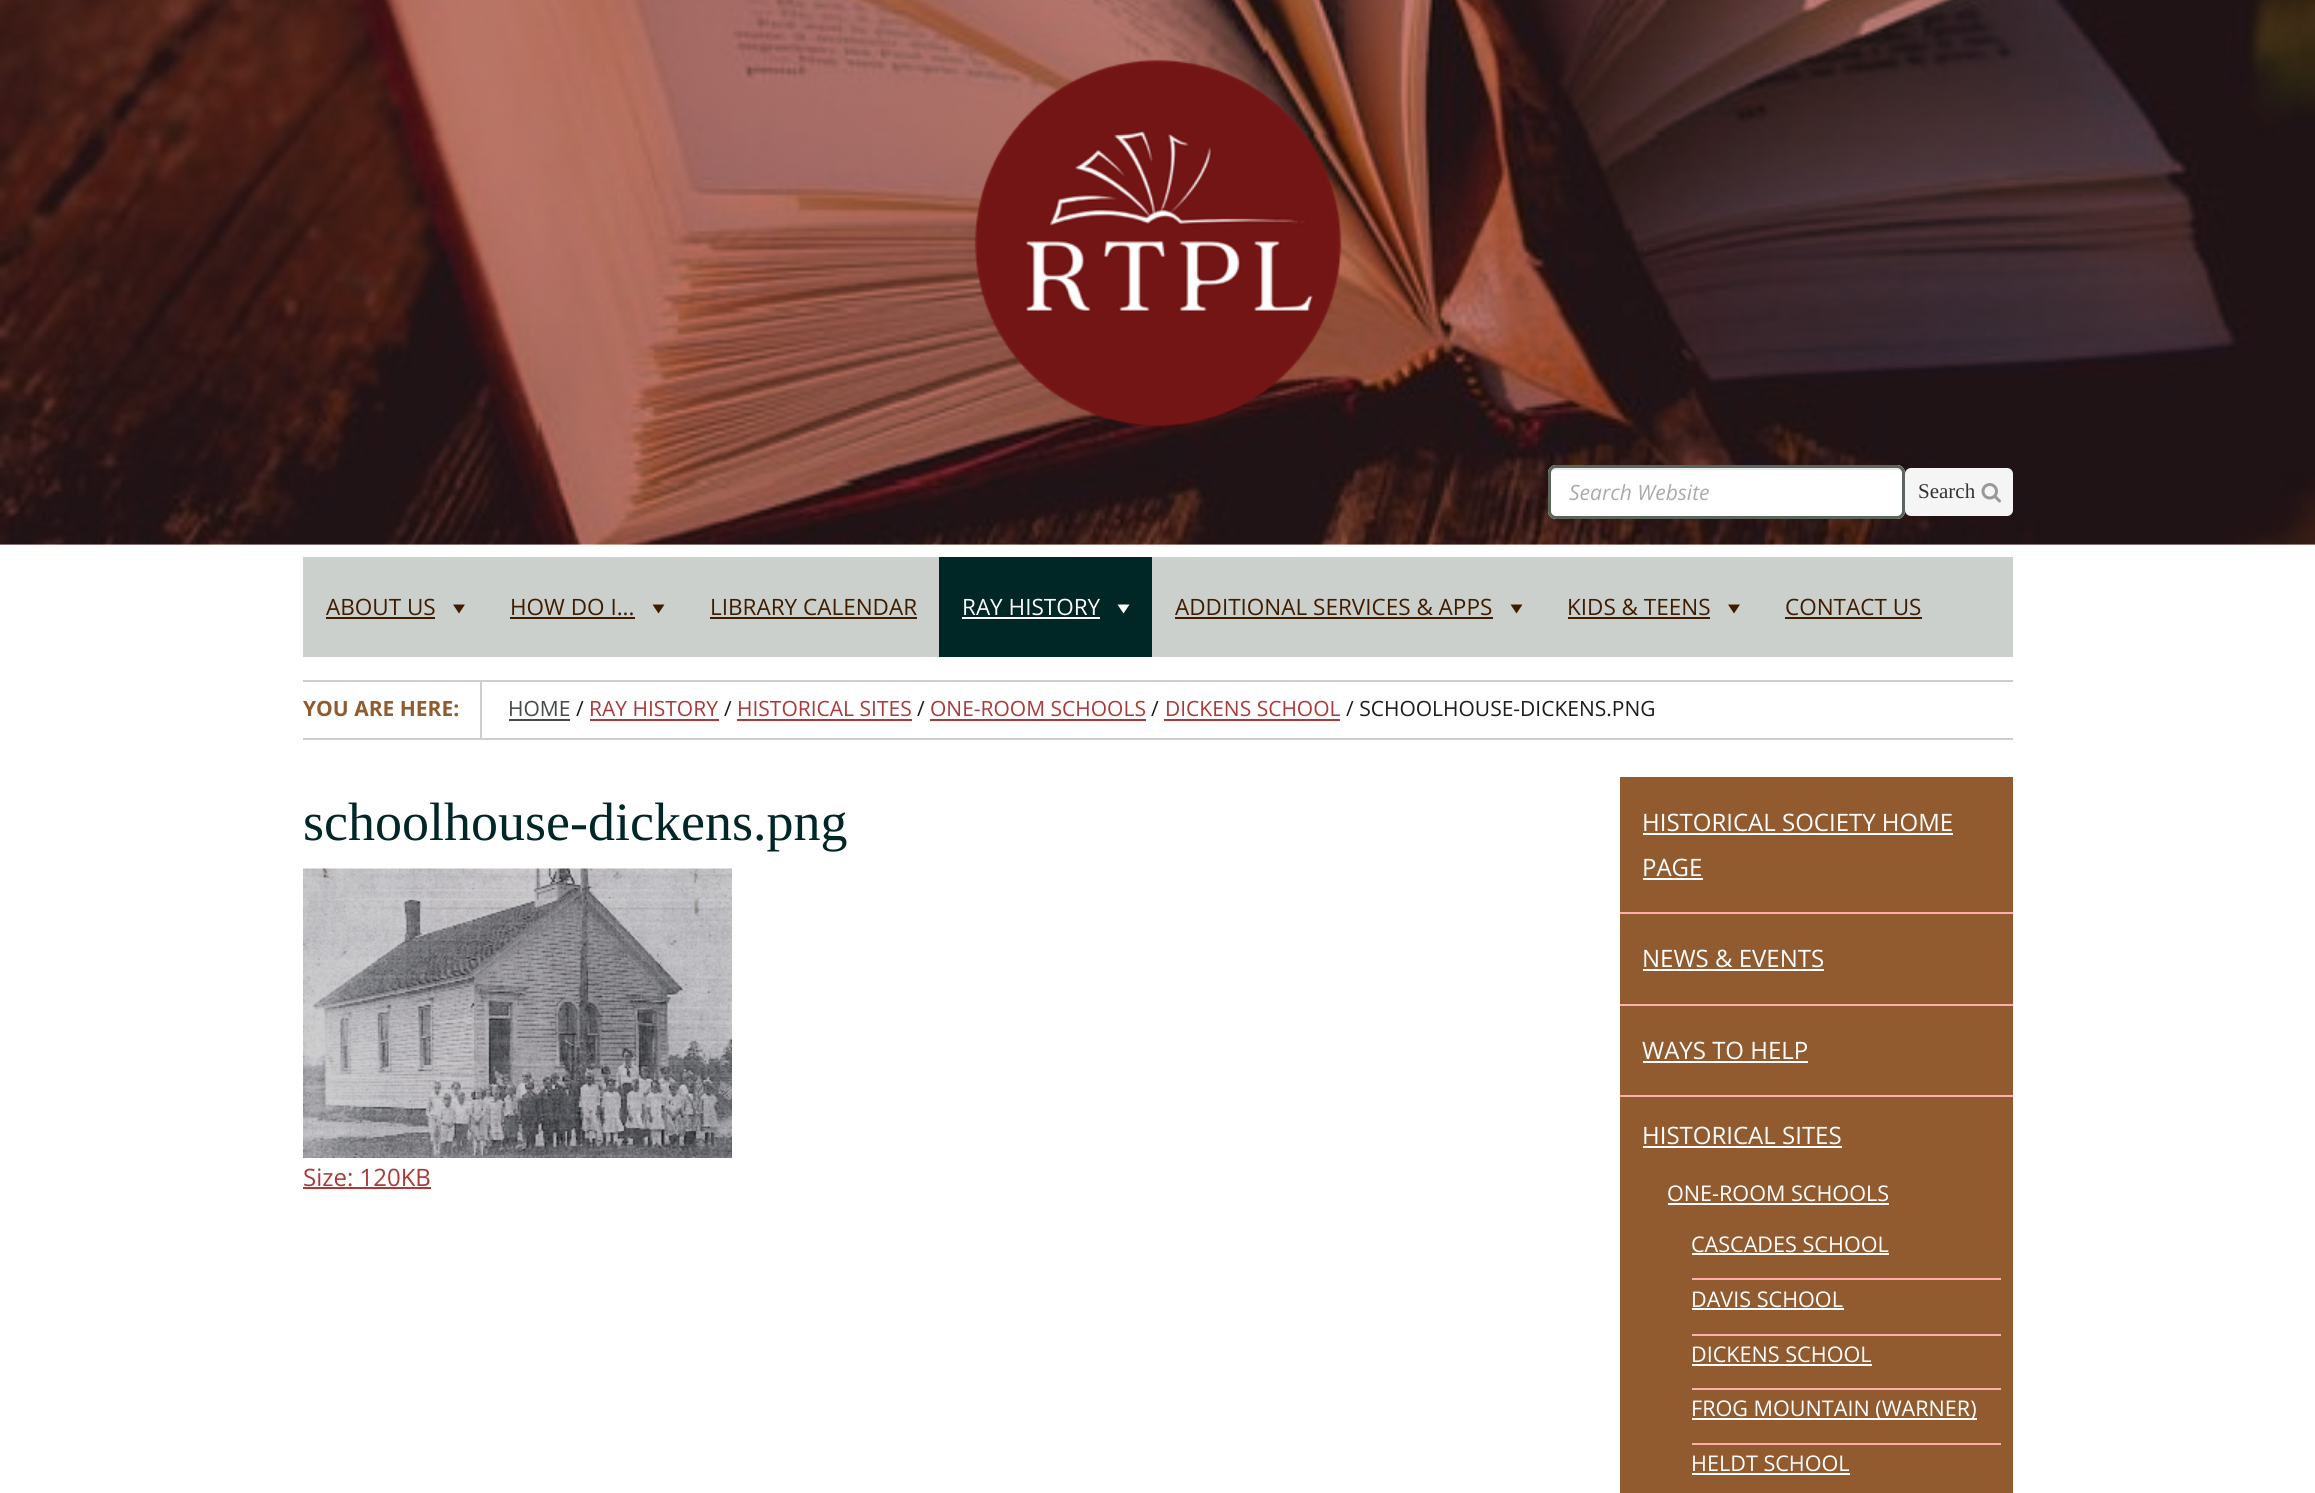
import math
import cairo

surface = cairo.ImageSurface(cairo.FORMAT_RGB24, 2315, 1493)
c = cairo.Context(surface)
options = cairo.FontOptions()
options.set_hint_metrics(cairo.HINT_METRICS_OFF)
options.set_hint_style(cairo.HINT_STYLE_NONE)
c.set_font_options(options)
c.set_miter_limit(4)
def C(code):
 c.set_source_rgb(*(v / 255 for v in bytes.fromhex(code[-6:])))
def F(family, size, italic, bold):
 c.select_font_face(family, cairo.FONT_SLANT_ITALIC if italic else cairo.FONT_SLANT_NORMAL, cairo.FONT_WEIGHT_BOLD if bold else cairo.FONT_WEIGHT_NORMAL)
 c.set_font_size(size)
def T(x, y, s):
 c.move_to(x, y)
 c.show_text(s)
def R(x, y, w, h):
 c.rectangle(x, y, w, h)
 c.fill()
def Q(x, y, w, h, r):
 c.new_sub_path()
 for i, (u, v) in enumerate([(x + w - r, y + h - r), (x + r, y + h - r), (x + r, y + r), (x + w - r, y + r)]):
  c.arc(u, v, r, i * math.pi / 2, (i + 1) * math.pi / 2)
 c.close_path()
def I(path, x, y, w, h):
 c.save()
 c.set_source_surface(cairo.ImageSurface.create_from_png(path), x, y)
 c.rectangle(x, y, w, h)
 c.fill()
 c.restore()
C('ffffff')
c.paint()
I('1.png',0,0,2315,545)
I('2.png',974,59,368,368)
C('ffffff')
Q(1548,465,357,54,8)
c.fill()
C('ececec')
c.new_path()
c.move_to(1556,470)
c.line_to(1898,470)
c.curve_to(1900,470,1902,472,1902,474)
c.line_to(1902,473)
c.curve_to(1902,470,1900,468,1897,468)
c.line_to(1556,468)
c.curve_to(1553,468,1551,470,1551,473)
c.line_to(1551,474)
c.curve_to(1551,472,1553,470,1556,470)
c.close_path()
c.fill()
Q(1549.5,466.5,354,51,6.5)
C('5c655c')
c.set_line_width(3)
c.stroke()
F('Open Sans',21,1,0)
C('aaaaaa')
T(1569,500,'Search Website')
C('f5f5f5')
Q(1905,468,108,48,6)
c.fill()
F('Liberation Serif',21,0,0)
C('333333')
T(1918,498,'Search')
I('3.png',1981,483,20,20)
C('ccd0cc')
R(303,557,1710,100)
F('Open Sans',22.5,0,0)
C('3f1c00')
T(326,615,'ABOUT US')
R(326,617,109,2)
c.new_path()
c.move_to(453,604.5)
c.line_to(465,604.5)
c.line_to(459,613.5)
c.close_path()
c.fill()
T(510,615,'HOW DO I...')
R(510,617,125,2)
c.new_path()
c.move_to(652.5,604.5)
c.line_to(664.5,604.5)
c.line_to(658.5,613.5)
c.close_path()
c.fill()
T(710,615,'LIBRARY CALENDAR')
R(710,617,207,2)
C('002626')
R(939,557,213,100)
C('ffffff')
T(962,615,'RAY HISTORY')
R(962,617,138,2)
c.new_path()
c.move_to(1117.5,604.5)
c.line_to(1129.5,604.5)
c.line_to(1123.5,613.5)
c.close_path()
c.fill()
C('3f1c00')
T(1175,615,'ADDITIONAL SERVICES & APPS')
R(1175,617,318,2)
c.new_path()
c.move_to(1510.5,604.5)
c.line_to(1522.5,604.5)
c.line_to(1516.5,613.5)
c.close_path()
c.fill()
T(1567,615,'KIDS & TEENS')
R(1568,617,142,2)
c.new_path()
c.move_to(1728,604.5)
c.line_to(1740,604.5)
c.line_to(1734,613.5)
c.close_path()
c.fill()
T(1785,615,'CONTACT US')
R(1785,617,137,2)
C('ccd0cc')
R(303,680,1710,2)
R(303,738,1710,2)
R(480,681,2,57)
F('Open Sans',21,0,1)
C('915b2f')
T(303,716,'YOU ARE HERE:')
F('Open Sans',21,0,0)
C('444a44')
T(508,716,'HOME')
R(509,719,61,2)
C('1c1c1c')
T(576,716,'/')
C('aa3939')
T(589,716,'RAY HISTORY')
R(590,719,129,2)
C('1c1c1c')
T(724,716,'/')
C('aa3939')
T(737,716,'HISTORICAL SITES')
R(737,719,175,2)
C('1c1c1c')
T(917,716,'/')
C('aa3939')
T(930,716,'ONE-ROOM SCHOOLS')
R(930,719,216,2)
C('1c1c1c')
T(1151,716,'/')
C('aa3939')
T(1165,716,'DICKENS SCHOOL')
R(1164,719,176,2)
C('1c1c1c')
T(1346,716,'/ SCHOOLHOUSE-DICKENS.PNG')
F('Liberation Serif',54,0,0)
C('002626')
T(303,840,'schoolhouse-dickens.png')
I('4.png',303,868,429,290)
F('Open Sans',24,0,0)
C('aa3939')
T(303,1186,'Size: 120KB')
R(303,1187,128,2)
C('915b2f')
R(1620,777,393,716)
C('ffadad')
R(1620,912,393,2)
C('ffffff')
T(1642,831,'HISTORICAL SOCIETY HOME')
R(1643,833,310,2)
T(1642,876,'PAGE')
R(1643,878,60,2)
C('ffadad')
R(1620,1004,393,2)
C('ffffff')
T(1642,967,'NEWS & EVENTS')
R(1643,969,181,2)
C('ffadad')
R(1620,1095,393,2)
C('ffffff')
T(1642,1059,'WAYS TO HELP')
R(1643,1061,165,2)
T(1642,1144,'HISTORICAL SITES')
R(1643,1146,199,2)
F('Open Sans',21.6,0,0)
T(1667,1201,'ONE-ROOM SCHOOLS')
R(1668,1203,221,2)
C('ffadad')
R(1692,1278,309,2)
C('ffffff')
T(1691,1252,'CASCADES SCHOOL')
R(1692,1253,197,2)
C('ffadad')
R(1692,1334,309,2)
C('ffffff')
T(1691,1307,'DAVIS SCHOOL')
R(1692,1308,152,2)
C('ffadad')
R(1692,1388,309,2)
C('ffffff')
T(1691,1362,'DICKENS SCHOOL')
R(1692,1364,180,2)
C('ffadad')
R(1692,1443,309,2)
C('ffffff')
R(1692,1418,285,2)
T(1691,1416,'FROG MOUNTAIN (WARNER)')
T(1691,1471,'HELDT SCHOOL')
R(1692,1473,158,2)
surface.write_to_png('o.png')
